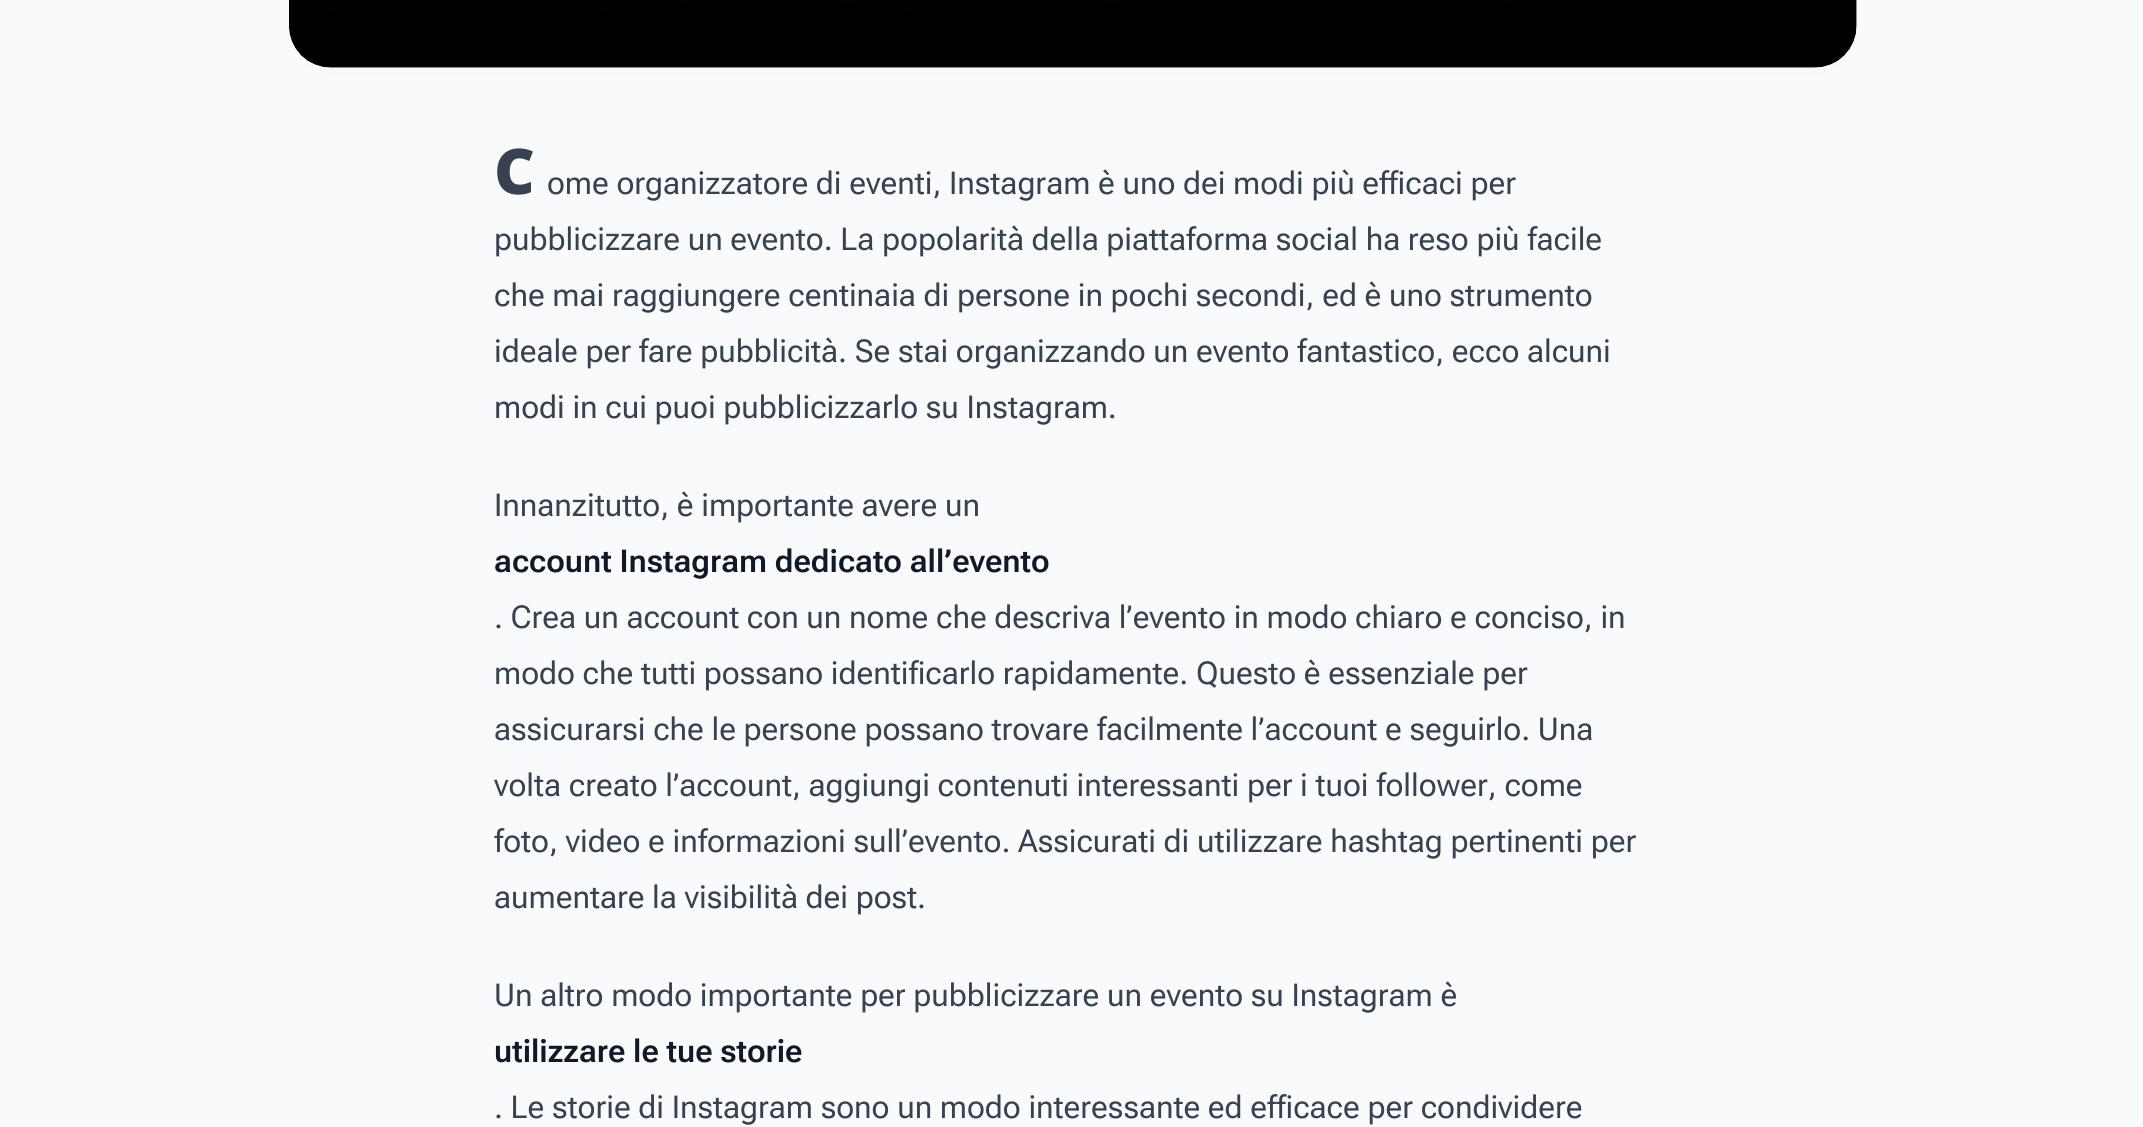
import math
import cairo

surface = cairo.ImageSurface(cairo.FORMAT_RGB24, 2143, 1127)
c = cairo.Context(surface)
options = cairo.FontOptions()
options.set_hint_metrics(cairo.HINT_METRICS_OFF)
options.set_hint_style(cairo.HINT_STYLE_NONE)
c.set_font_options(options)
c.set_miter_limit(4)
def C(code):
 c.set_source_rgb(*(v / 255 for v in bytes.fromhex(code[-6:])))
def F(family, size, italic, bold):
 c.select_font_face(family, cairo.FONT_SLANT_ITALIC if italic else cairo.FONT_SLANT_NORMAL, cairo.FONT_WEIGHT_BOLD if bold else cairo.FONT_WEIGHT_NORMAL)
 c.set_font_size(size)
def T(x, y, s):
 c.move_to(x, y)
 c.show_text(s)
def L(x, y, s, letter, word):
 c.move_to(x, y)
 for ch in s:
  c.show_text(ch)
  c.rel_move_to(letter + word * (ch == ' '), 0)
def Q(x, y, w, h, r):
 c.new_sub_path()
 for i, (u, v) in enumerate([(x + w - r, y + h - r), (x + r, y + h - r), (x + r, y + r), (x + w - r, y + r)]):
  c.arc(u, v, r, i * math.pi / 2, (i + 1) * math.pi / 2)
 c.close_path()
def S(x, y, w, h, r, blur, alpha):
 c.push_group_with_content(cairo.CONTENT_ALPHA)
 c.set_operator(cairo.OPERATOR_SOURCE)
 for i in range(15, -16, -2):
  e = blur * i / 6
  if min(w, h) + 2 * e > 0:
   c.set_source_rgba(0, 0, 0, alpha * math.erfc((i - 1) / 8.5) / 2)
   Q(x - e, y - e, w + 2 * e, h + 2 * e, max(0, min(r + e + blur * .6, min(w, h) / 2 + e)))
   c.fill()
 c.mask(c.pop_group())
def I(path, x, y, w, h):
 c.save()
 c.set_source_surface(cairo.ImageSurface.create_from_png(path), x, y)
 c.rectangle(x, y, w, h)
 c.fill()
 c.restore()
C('f9fafb')
c.paint()
C('e0f2fe')
S(296,-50,1554,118,35,5,.5)
C('f1f5f9')
Q(289,-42,1568,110,42)
c.fill()
I('1.png',289,0,1568,68)
F('Noto Sans Black',63,0,0)
C('374151')
L(494,194,'C',9,0)
F('Roboto Flex',31.5,0,0)
T(547,194,'ome organizzatore di eventi, Instagram è uno dei modi più efficaci per')
T(494,250,'pubblicizzare un evento. La popolarità della piattaforma social ha reso più facile')
T(494,306,'che mai raggiungere centinaia di persone in pochi secondi, ed è uno strumento')
T(494,362,'ideale per fare pubblicità. Se stai organizzando un evento fantastico, ecco alcuni')
T(494,418,'modi in cui puoi pubblicizzarlo su Instagram.')
T(494,516,'Innanzitutto, è importante avere un')
F('Roboto Flex SemiBold',31.5,0,0)
C('111827')
T(494,572,'account Instagram dedicato all’evento')
F('Roboto Flex',31.5,0,0)
C('374151')
T(494,628,'. Crea un account con un nome che descriva l’evento in modo chiaro e conciso, in')
T(494,684,'modo che tutti possano identificarlo rapidamente. Questo è essenziale per')
T(494,740,'assicurarsi che le persone possano trovare facilmente l’account e seguirlo. Una')
T(494,796,'volta creato l’account, aggiungi contenuti interessanti per i tuoi follower, come')
T(494,852,'foto, video e informazioni sull’evento. Assicurati di utilizzare hashtag pertinenti per')
T(494,908,'aumentare la visibilità dei post.')
T(494,1006,'Un altro modo importante per pubblicizzare un evento su Instagram è')
F('Roboto Flex SemiBold',31.5,0,0)
C('111827')
T(494,1062,'utilizzare le tue storie')
F('Roboto Flex',31.5,0,0)
C('374151')
T(494,1118,'. Le storie di Instagram sono un modo interessante ed efficace per condividere')
surface.write_to_png('o.png')
